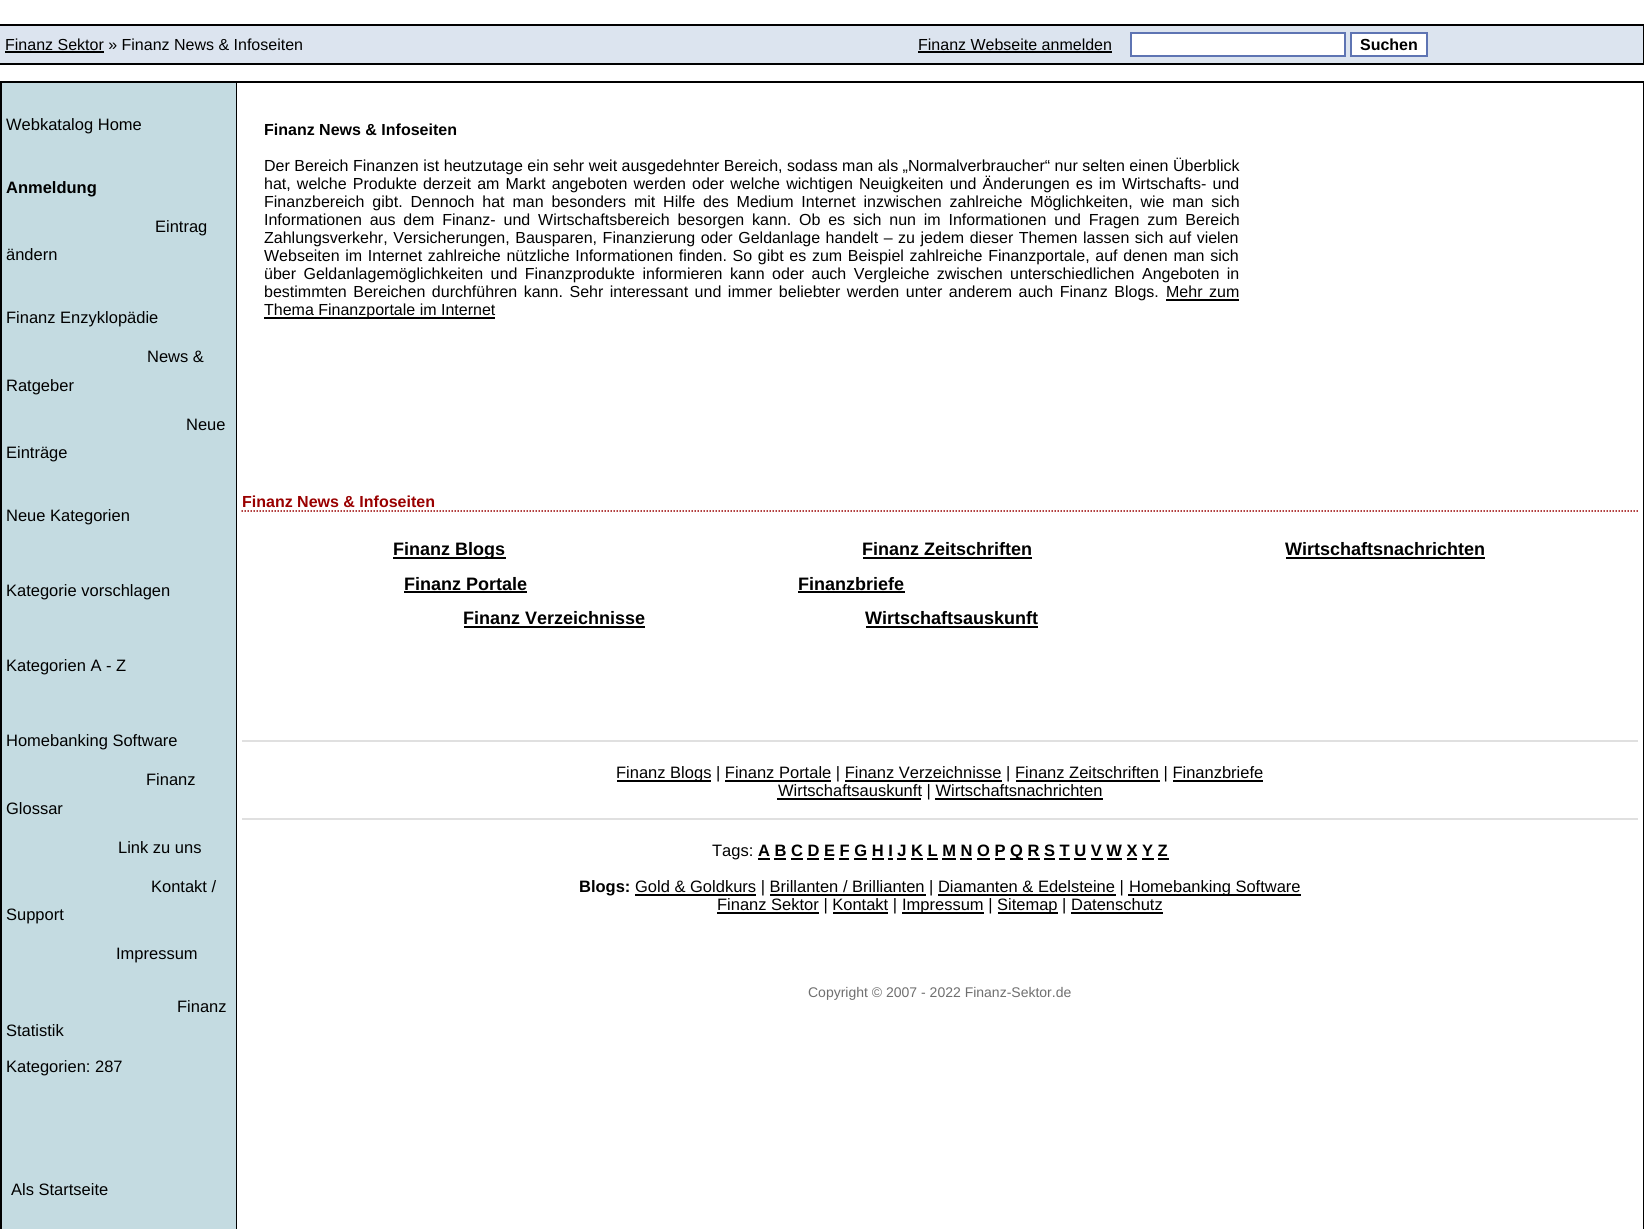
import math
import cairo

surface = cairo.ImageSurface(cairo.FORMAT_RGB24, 1644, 1229)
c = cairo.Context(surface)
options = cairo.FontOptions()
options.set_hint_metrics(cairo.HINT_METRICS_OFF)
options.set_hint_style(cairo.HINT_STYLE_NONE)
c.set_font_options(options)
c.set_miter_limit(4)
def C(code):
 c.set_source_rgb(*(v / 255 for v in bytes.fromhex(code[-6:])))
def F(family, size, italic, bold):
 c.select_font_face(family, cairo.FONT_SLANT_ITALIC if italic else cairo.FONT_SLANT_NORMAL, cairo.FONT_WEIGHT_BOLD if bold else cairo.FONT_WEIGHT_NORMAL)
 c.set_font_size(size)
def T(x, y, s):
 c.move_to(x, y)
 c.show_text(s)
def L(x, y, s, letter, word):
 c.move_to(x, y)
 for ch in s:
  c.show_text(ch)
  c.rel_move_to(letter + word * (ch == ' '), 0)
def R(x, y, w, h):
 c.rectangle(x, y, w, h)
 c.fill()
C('ffffff')
c.paint()
C('dce4ef')
R(0,26,1643,37)
C('000000')
R(0,24,1644,2)
R(1643,24,1,41)
R(0,63,1644,2)
F('Liberation Sans',16,0,0)
T(5,50,'Finanz Sektor » Finanz News & Infoseiten')
R(5,51,99,2)
T(918,50,'Finanz Webseite anmelden')
R(918,51,194,2)
C('ffffff')
c.rectangle(1131,33,214,23)
c.fill_preserve()
C('5e74b3')
c.stroke()
C('ffffff')
c.rectangle(1351,33,76,23)
c.fill_preserve()
C('5e74b3')
c.stroke()
F('Liberation Sans',16,0,1)
C('000000')
T(1360,50,'Suchen')
R(0,81,1644,1148)
C('c4dbe1')
R(2,83,234,1146)
F('Liberation Sans',16.5,0,0)
C('000000')
T(6,130,'Webkatalog Home')
F('Liberation Sans',16.5,0,1)
T(6,193,'Anmeldung')
F('Liberation Sans',16.5,0,0)
T(155,232,'Eintrag')
T(6,260,'ändern')
T(6,323,'Finanz Enzyklopädie')
T(147,362,'News &')
T(6,391,'Ratgeber')
T(186,430,'Neue')
T(6,458,'Einträge')
T(6,521,'Neue Kategorien')
T(6,596,'Kategorie vorschlagen')
T(6,671,'Kategorien A - Z')
T(6,746,'Homebanking Software')
T(146,785,'Finanz')
T(6,814,'Glossar')
T(118,853,'Link zu uns')
T(151,892,'Kontakt /')
T(6,920,'Support')
T(116,959,'Impressum')
T(177,1012,'Finanz')
T(6,1036,'Statistik')
T(6,1072,'Kategorien: 287')
T(11,1195,'Als Startseite')
C('ffffff')
R(237,83,1406,1146)
F('Liberation Sans',16,0,1)
C('000000')
T(264,135,'Finanz News & Infoseiten')
F('Liberation Sans',16,0,0)
T(264,171,'Der Bereich Finanzen ist heutzutage ein sehr weit ausgedehnter Bereich, sodass man als „Normalverbraucher“ nur selten einen Überblick')
L(264,189,'hat, welche Produkte derzeit am Markt angeboten werden oder welche wichtigen Neuigkeiten und Änderungen es im Wirtschafts- und',0,1.7)
L(264,207,'Finanzbereich gibt. Dennoch hat man besonders mit Hilfe des Medium Internet inzwischen zahlreiche Möglichkeiten, wie man sich',0,3.4)
L(264,225,'Informationen aus dem Finanz- und Wirtschaftsbereich besorgen kann. Ob es sich nun im Informationen und Fragen zum Bereich',0,3.4)
L(264,243,'Zahlungsverkehr, Versicherungen, Bausparen, Finanzierung oder Geldanlage handelt – zu jedem dieser Themen lassen sich auf vielen',0,1.1)
L(264,261,'Webseiten im Internet zahlreiche nützliche Informationen finden. So gibt es zum Beispiel zahlreiche Finanzportale, auf denen man sich',0,1.25)
L(264,279,'über Geldanlagemöglichkeiten und Finanzprodukte informieren kann oder auch Vergleiche zwischen unterschiedlichen Angeboten in',0,3)
L(264,297,'bestimmten Bereichen durchführen kann. Sehr interessant und immer beliebter werden unter anderem auch Finanz Blogs.',0,2.1)
L(1166,297,'Mehr zum',0,2.1)
R(1166,299,73,2)
R(264,317,231,2)
T(264,315,'Thema Finanzportale im Internet')
c.new_path()
c.move_to(241.5,511)
c.line_to(1638,511)
C('990000')
c.set_line_width(1.5)
c.set_dash([1.5,1.5])
c.stroke()
F('Liberation Sans',16,0,1)
T(242,507,'Finanz News & Infoseiten')
C('000000')
R(393,557,113,2)
F('Liberation Sans',18,0,1)
T(393,555,'Finanz Blogs')
T(404,590,'Finanz Portale')
R(404,591,123,2)
T(463,624,'Finanz Verzeichnisse')
R(464,626,181,2)
T(862,555,'Finanz Zeitschriften')
R(863,557,169,2)
T(798,590,'Finanzbriefe')
R(798,591,107,2)
T(865,624,'Wirtschaftsauskunft')
R(866,626,172,2)
T(1285,555,'Wirtschaftsnachrichten')
R(1286,557,199,2)
C('e0e0e0')
R(242,740,1396,2)
C('000000')
R(617,780,94,2)
F('Liberation Sans',16.5,0,0)
T(616,778,'Finanz Blogs | Finanz Portale | Finanz Verzeichnisse | Finanz Zeitschriften | Finanzbriefe')
R(725,780,106,2)
R(845,780,157,2)
R(1016,780,144,2)
R(1173,780,90,2)
R(777,798,144,2)
T(778,796,'Wirtschaftsauskunft | Wirtschaftsnachrichten')
R(935,798,168,2)
C('e0e0e0')
R(242,818,1396,2)
C('000000')
T(712,856,'Tags:')
F('Liberation Sans',16.5,0,1)
T(758,856,'A B C D E F G H I J K L M N O P')
R(758,858,12,2)
R(774,858,12,2)
R(791,858,12,2)
R(807,858,12,2)
R(824,858,10,2)
R(839,858,10,2)
R(854,858,13,2)
R(872,858,12,2)
R(888,858,5,2)
R(897,858,9,2)
R(911,858,12,2)
R(927,858,11,2)
R(942,858,14,2)
R(960,858,12,2)
R(977,858,13,2)
R(995,858,10,2)
R(1010,858,13,2)
T(1010,856,'Q R S T U V W X Y Z')
R(1028,858,12,2)
R(1044,858,11,2)
R(1059,858,11,2)
R(1074,858,12,2)
R(1091,858,12,2)
R(1107,858,15,2)
R(1127,858,10,2)
R(1142,858,12,2)
R(1158,858,11,2)
T(579,892,'Blogs:')
R(635,894,121,2)
F('Liberation Sans',16.5,0,0)
T(635,892,'Gold & Goldkurs | Brillanten / Brillianten | Diamanten & Edelsteine |')
R(1128,894,173,2)
T(1129,892,'Homebanking Software')
R(770,894,156,2)
R(938,894,178,2)
R(717,912,102,2)
T(717,910,'Finanz Sektor | Kontakt |')
R(902,912,82,2)
T(902,910,'Impressum |')
R(998,912,60,2)
T(997,910,'Sitemap | Datenschutz')
R(833,912,55,2)
R(1071,912,92,2)
F('Liberation Sans',14,0,0)
C('6f6f6f')
T(808,997,'Copyright © 2007 - 2022 Finanz-Sektor.de')
surface.write_to_png('o.png')
